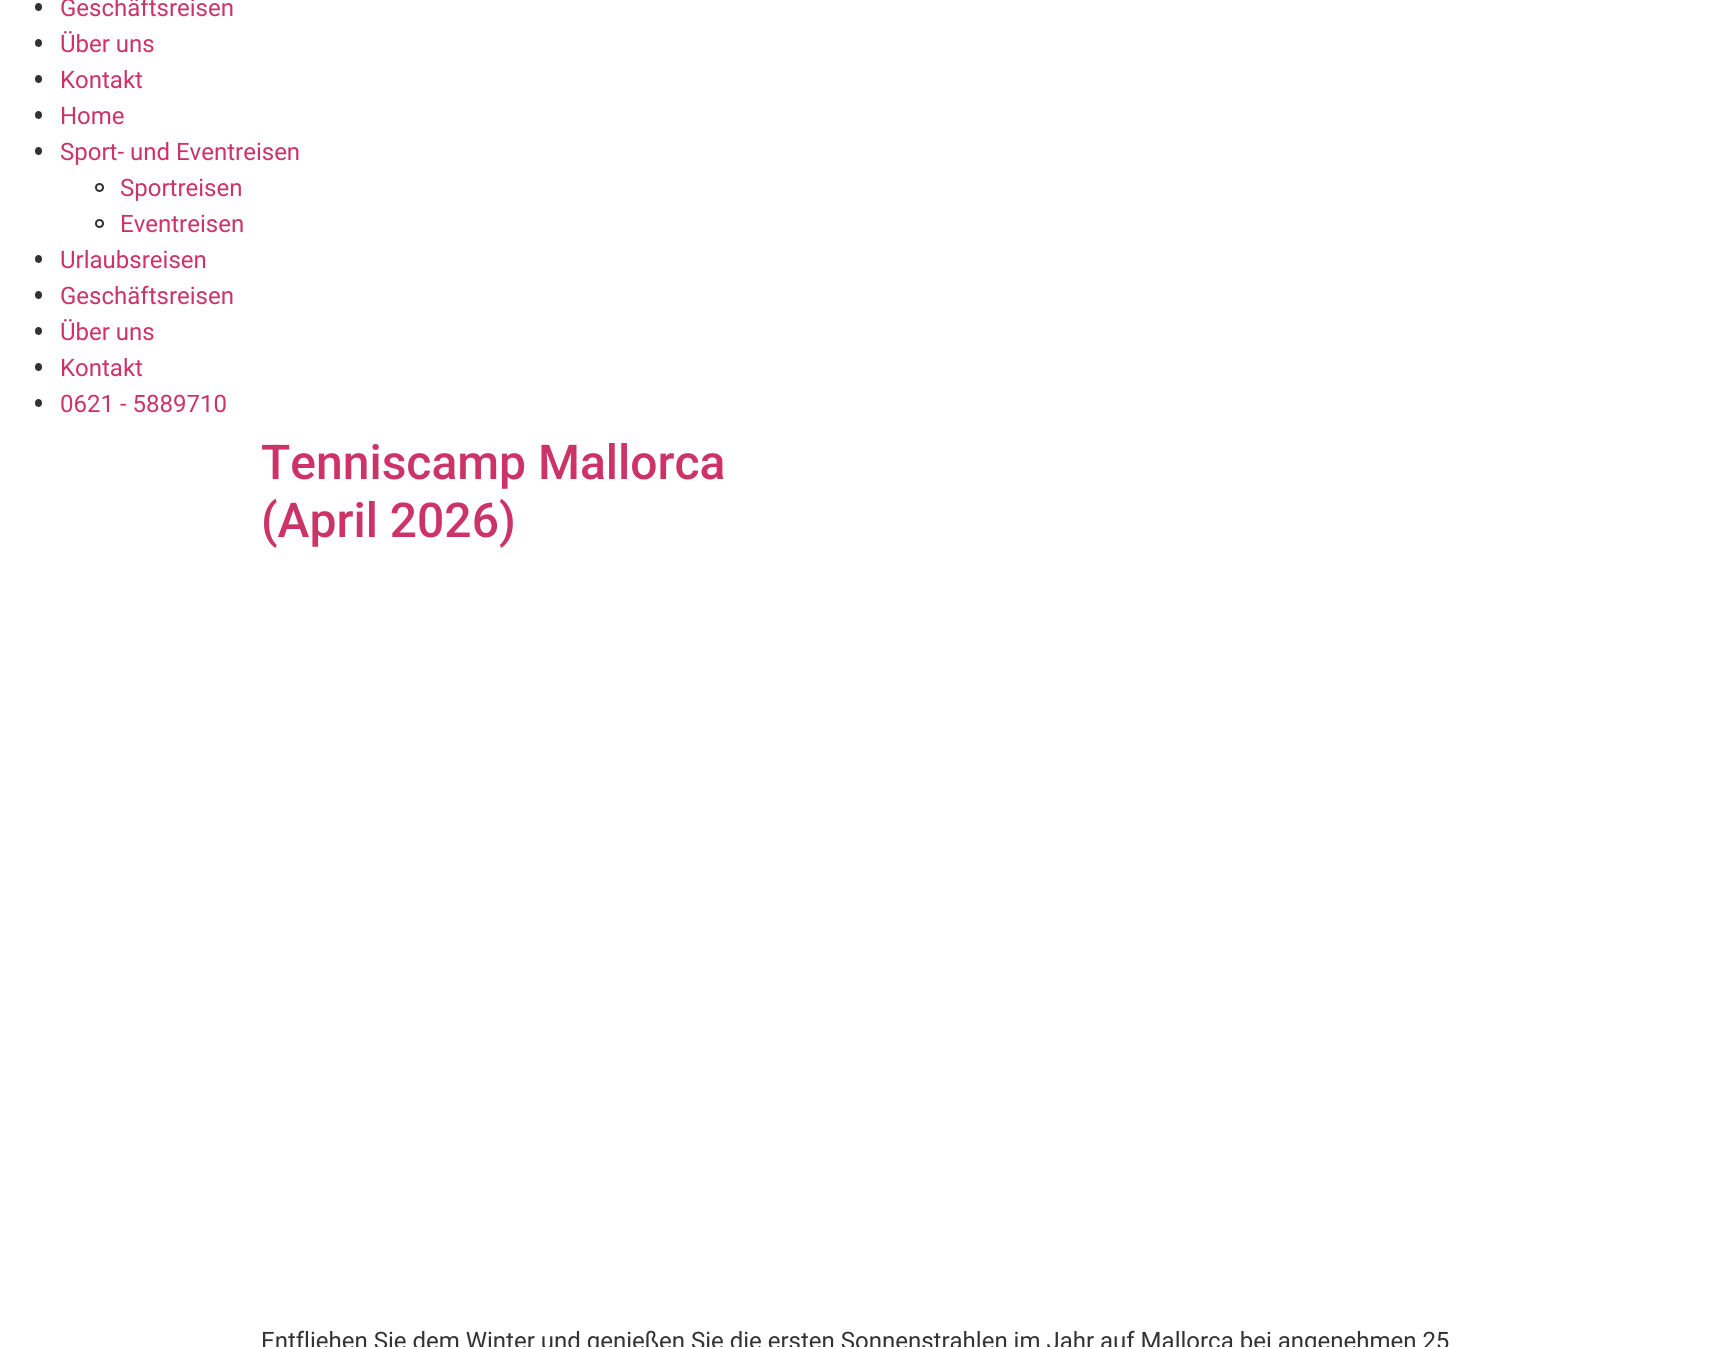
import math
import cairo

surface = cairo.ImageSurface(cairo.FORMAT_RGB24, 1721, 1347)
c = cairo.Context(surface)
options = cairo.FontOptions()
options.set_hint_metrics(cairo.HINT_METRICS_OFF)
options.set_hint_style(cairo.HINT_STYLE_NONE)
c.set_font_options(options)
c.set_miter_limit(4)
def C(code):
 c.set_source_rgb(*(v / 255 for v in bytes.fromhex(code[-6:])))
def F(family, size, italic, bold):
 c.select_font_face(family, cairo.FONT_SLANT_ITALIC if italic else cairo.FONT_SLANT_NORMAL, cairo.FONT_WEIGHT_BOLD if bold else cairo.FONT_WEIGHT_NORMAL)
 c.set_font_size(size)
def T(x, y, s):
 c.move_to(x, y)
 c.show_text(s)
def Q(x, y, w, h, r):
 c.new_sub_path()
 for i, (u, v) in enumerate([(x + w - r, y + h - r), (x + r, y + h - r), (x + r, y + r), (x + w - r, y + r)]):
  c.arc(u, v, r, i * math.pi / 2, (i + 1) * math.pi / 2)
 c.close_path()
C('ffffff')
c.paint()
C('333333')
Q(35,3,7,8,3.5)
c.fill()
F('Roboto',24,0,0)
C('cc3366')
T(60,16,'Geschäftsreisen')
C('333333')
Q(35,39,7,8,3.5)
c.fill()
C('cc3366')
T(60,52,'Über uns')
C('333333')
Q(35,75,7,8,3.5)
c.fill()
C('cc3366')
T(60,88,'Kontakt')
C('333333')
Q(35,111,7,8,3.5)
c.fill()
C('cc3366')
T(60,124,'Home')
C('333333')
Q(35,147,7,8,3.5)
c.fill()
C('cc3366')
T(60,160,'Sport- und Eventreisen')
c.new_path()
c.arc(99.5,187.5,3.5,0,2 * math.pi)
C('333333')
c.stroke()
C('cc3366')
T(120,196,'Sportreisen')
c.new_path()
c.arc(99.5,223.5,3.5,0,2 * math.pi)
C('333333')
c.stroke()
C('cc3366')
T(120,232,'Eventreisen')
C('333333')
Q(35,255,7,8,3.5)
c.fill()
C('cc3366')
T(60,268,'Urlaubsreisen')
C('333333')
Q(35,291,7,8,3.5)
c.fill()
C('cc3366')
T(60,304,'Geschäftsreisen')
C('333333')
Q(35,327,7,8,3.5)
c.fill()
C('cc3366')
T(60,340,'Über uns')
C('333333')
Q(35,363,7,8,3.5)
c.fill()
C('cc3366')
T(60,376,'Kontakt')
C('333333')
Q(35,399,7,8,3.5)
c.fill()
C('cc3366')
T(60,412,'0621 - 5889710')
F('Roboto Medium',48,0,0)
T(261,479,'Tenniscamp Mallorca')
T(261,537,'(April 2026)')
F('Roboto',24,0,0)
C('333333')
T(261,1349,'Entfliehen Sie dem Winter und genießen Sie die ersten Sonnenstrahlen im Jahr auf Mallorca bei angenehmen 25')
surface.write_to_png('o.png')
